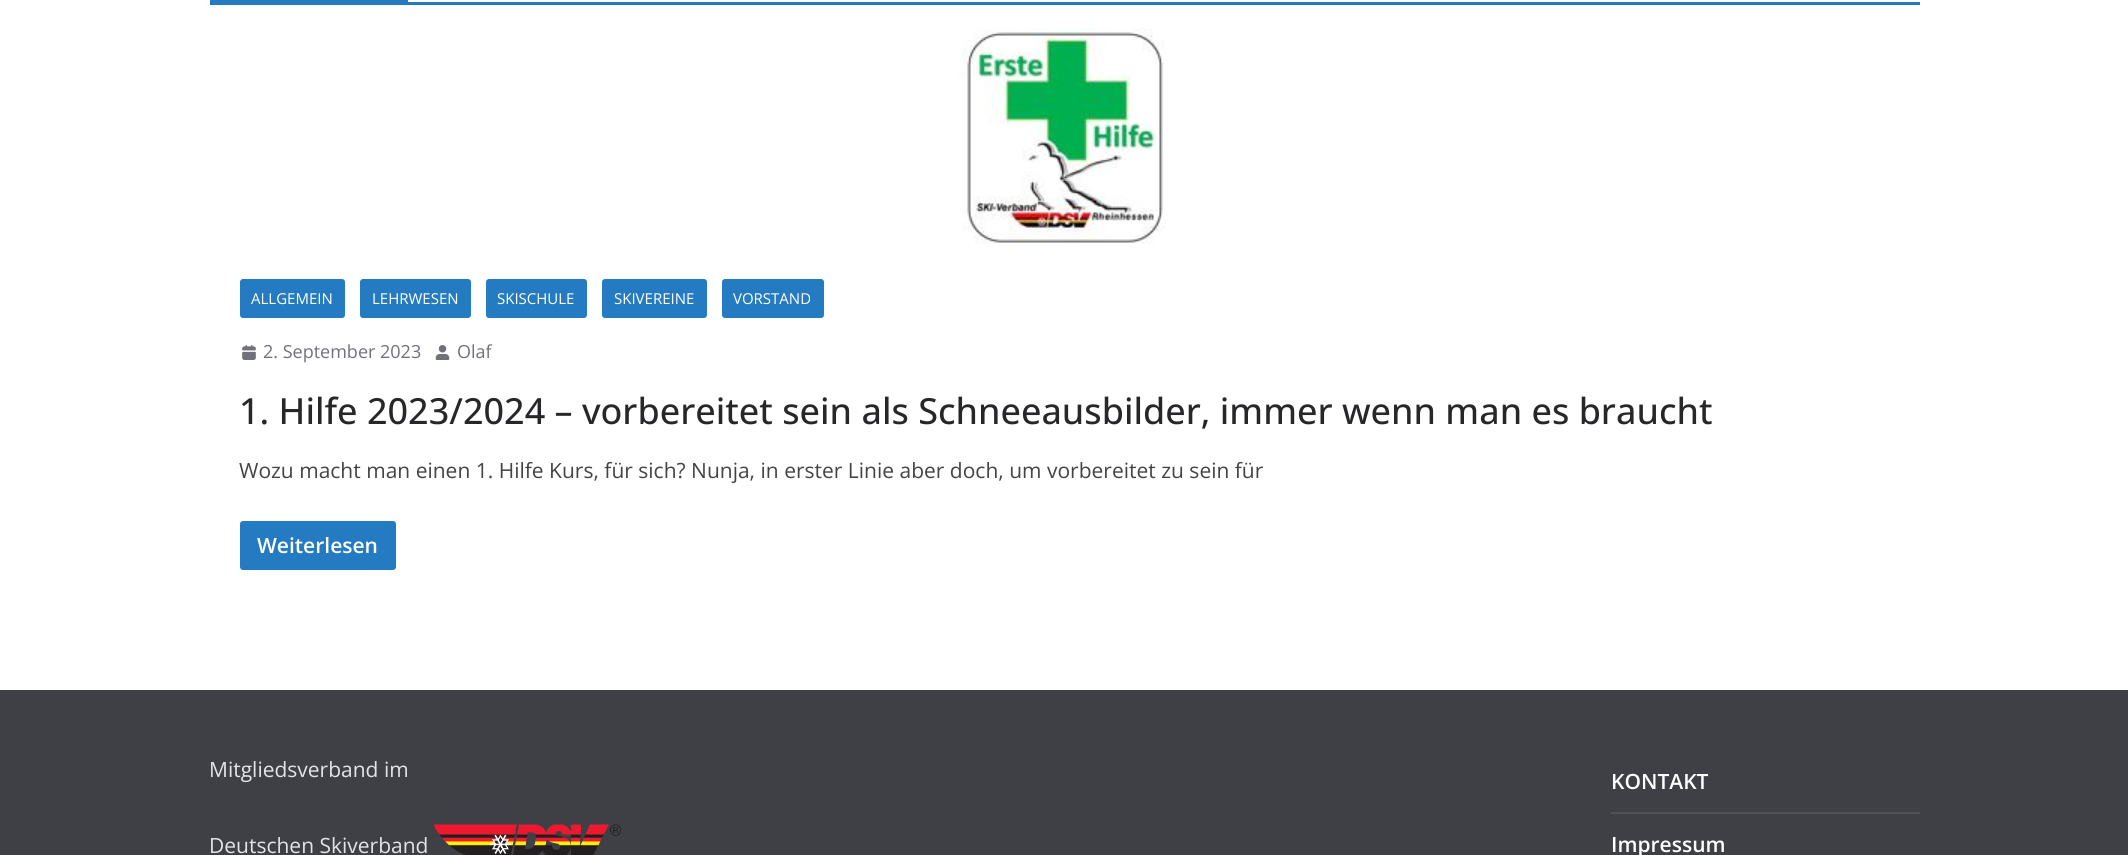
import math
import cairo

surface = cairo.ImageSurface(cairo.FORMAT_RGB24, 2128, 855)
c = cairo.Context(surface)
options = cairo.FontOptions()
options.set_hint_metrics(cairo.HINT_METRICS_OFF)
options.set_hint_style(cairo.HINT_STYLE_NONE)
c.set_font_options(options)
c.set_miter_limit(4)
def C(code):
 c.set_source_rgb(*(v / 255 for v in bytes.fromhex(code[-6:])))
def F(family, size, italic, bold):
 c.select_font_face(family, cairo.FONT_SLANT_ITALIC if italic else cairo.FONT_SLANT_NORMAL, cairo.FONT_WEIGHT_BOLD if bold else cairo.FONT_WEIGHT_NORMAL)
 c.set_font_size(size)
def T(x, y, s):
 c.move_to(x, y)
 c.show_text(s)
def R(x, y, w, h):
 c.rectangle(x, y, w, h)
 c.fill()
def Q(x, y, w, h, r):
 c.new_sub_path()
 for i, (u, v) in enumerate([(x + w - r, y + h - r), (x + r, y + h - r), (x + r, y + r), (x + w - r, y + r)]):
  c.arc(u, v, r, i * math.pi / 2, (i + 1) * math.pi / 2)
 c.close_path()
def I(path, x, y, w, h):
 c.save()
 c.set_source_surface(cairo.ImageSurface.create_from_png(path), x, y)
 c.rectangle(x, y, w, h)
 c.fill()
 c.restore()
C('ffffff')
c.paint()
C('257bc1')
R(210,2,1710,3)
R(210,0,198,2)
I('1.png',961,28,207,216)
Q(240,279,105,39,3)
c.fill()
F('Open Sans',15,0,0)
C('ffffff')
T(251,304,'ALLGEMEIN')
C('257bc1')
Q(360,279,111,39,3)
c.fill()
C('ffffff')
T(372,304,'LEHRWESEN')
C('257bc1')
Q(486,279,101,39,3)
c.fill()
C('ffffff')
T(497,304,'SKISCHULE')
C('257bc1')
Q(602,279,105,39,3)
c.fill()
C('ffffff')
T(614,304,'SKIVEREINE')
C('257bc1')
Q(722,279,102,39,3)
c.fill()
C('ffffff')
T(733,304,'VORSTAND')
I('2.png',242,345,14,15)
F('Open Sans',18,0,0)
C('71717a')
T(263,358,'2. September 2023')
I('3.png',435,345,15,15)
T(457,358,'Olaf')
F('Open Sans Medium',36,0,0)
C('27272a')
T(239,424,'1. Hilfe 2023/2024 – vorbereitet sein als Schneeausbilder, immer wenn man es braucht')
F('Open Sans',21,0,0)
C('444444')
T(239,478,'Wozu macht man einen 1. Hilfe Kurs, für sich? Nunja, in erster Linie aber doch, um vorbereitet zu sein für')
C('257bc1')
Q(240,521,156,49,3)
c.fill()
F('Open Sans SemiBold',21,0,0)
C('ffffff')
T(257,553,'Weiterlesen')
C('3f3f46')
R(0,690,2128,165)
F('Open Sans',21,0,0)
C('e4e4e7')
T(209,777,'Mitgliedsverband im')
T(209,853,'Deutschen Skiverband')
I('4.png',433,824,188,31)
C('52525b')
R(1611,812,309,2)
F('Open Sans SemiBold',21,0,0)
C('ffffff')
T(1611,789,'KONTAKT')
T(1611,852,'Impressum')
surface.write_to_png('o.png')
